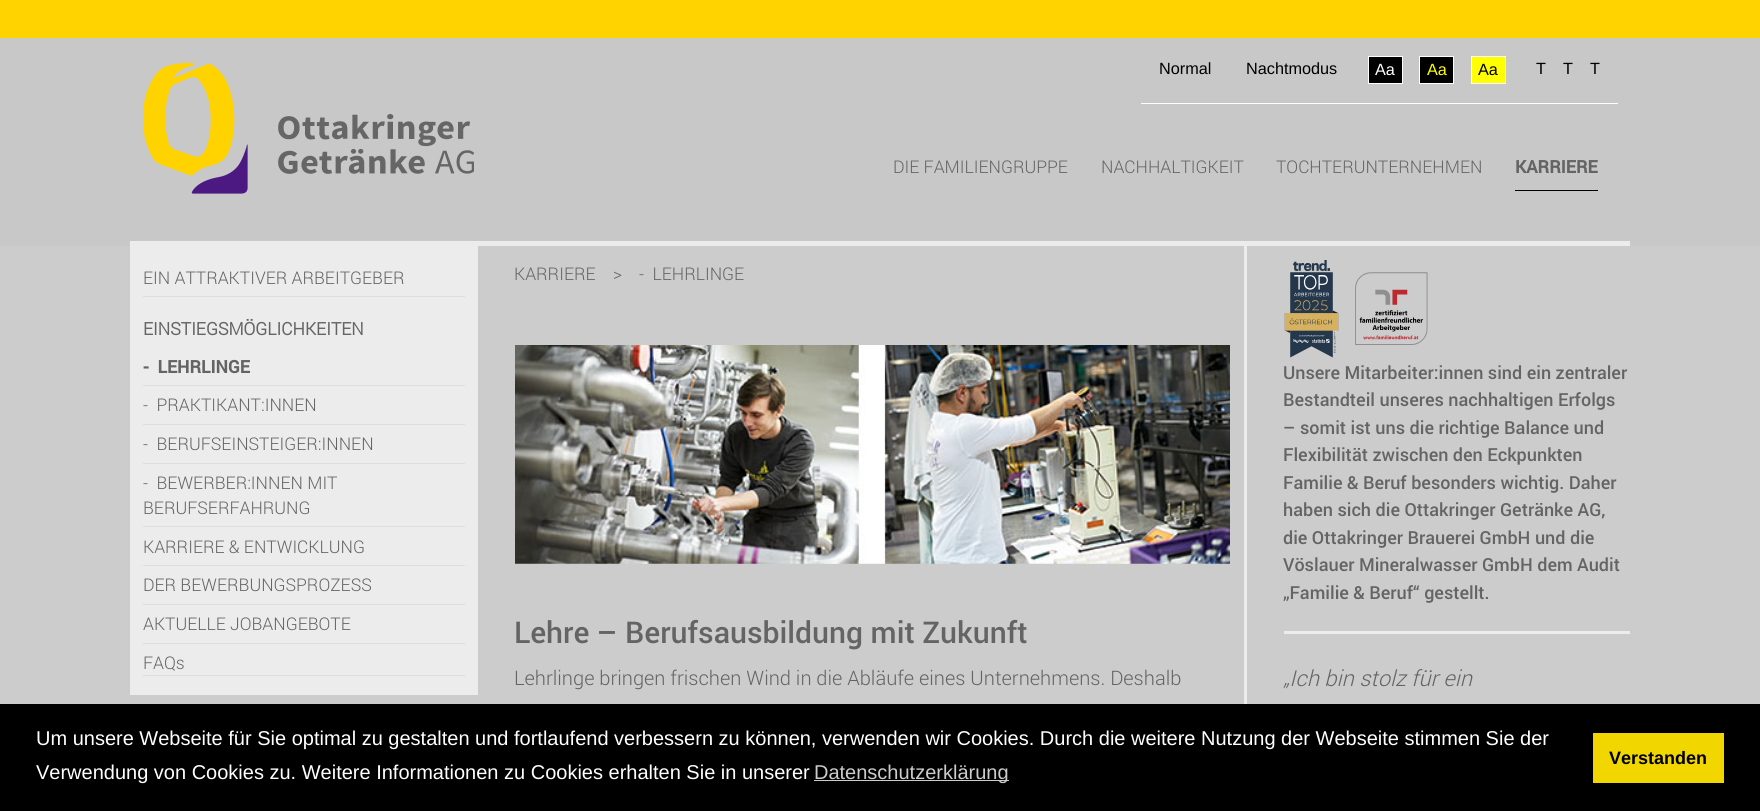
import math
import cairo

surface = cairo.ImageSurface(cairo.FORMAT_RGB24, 1760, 811)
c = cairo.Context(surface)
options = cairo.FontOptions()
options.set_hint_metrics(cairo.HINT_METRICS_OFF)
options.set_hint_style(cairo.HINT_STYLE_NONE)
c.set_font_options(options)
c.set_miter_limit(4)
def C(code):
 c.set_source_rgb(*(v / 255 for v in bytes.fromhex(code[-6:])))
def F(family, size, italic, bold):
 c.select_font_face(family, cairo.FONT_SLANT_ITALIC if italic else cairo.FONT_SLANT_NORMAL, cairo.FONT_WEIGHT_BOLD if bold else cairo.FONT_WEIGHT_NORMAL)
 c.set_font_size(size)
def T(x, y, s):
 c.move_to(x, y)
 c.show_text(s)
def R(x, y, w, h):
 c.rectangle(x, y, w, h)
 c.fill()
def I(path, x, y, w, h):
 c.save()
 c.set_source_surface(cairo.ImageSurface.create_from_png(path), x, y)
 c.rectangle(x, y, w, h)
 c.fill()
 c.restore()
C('cccccc')
c.paint()
C('c8c8c8')
R(0,38,1760,208)
C('ffd300')
R(0,0,1760,38)
C('ececed')
R(130,241,1500,5)
C('ffffff')
R(1141,103,477,1)
F('Liberation Sans',16.25,0,0)
C('000000')
T(1159,74,'Normal')
T(1246,74,'Nachtmodus')
c.rectangle(1368.5,56.5,34,27)
c.fill_preserve()
C('ffffff')
c.set_line_width(1)
c.stroke()
T(1375,75,'Aa')
C('000000')
c.rectangle(1419.5,56.5,34,27)
c.fill_preserve()
C('ffffff')
c.stroke()
C('ffff00')
T(1427,75,'Aa')
c.rectangle(1471.5,56.5,34,27)
c.fill_preserve()
C('ffffff')
c.stroke()
C('000000')
T(1478,75,'Aa')
T(1536,74,'T')
T(1563,74,'T')
T(1590,74,'T')
I('1.png',143,63,331,131)
F('Roboto Light',17.5,0,0)
C('646464')
T(893,173,'DIE FAMILIENGRUPPE')
T(1101,173,'NACHHALTIGKEIT')
T(1276,173,'TOCHTERUNTERNEHMEN')
F('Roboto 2',17.5,0,1)
T(1515,173,'KARRIERE')
C('000000')
R(1515,190,83,1)
C('ececed')
R(130,246,348,449)
C('dddddd')
R(143,296,322,1)
F('Roboto Light',17.5,0,0)
C('646464')
T(143,284,'EIN ATTRAKTIVER ARBEITGEBER')
F('Roboto',17.5,0,1)
T(143,335,'EINSTIEGSMÖGLICHKEITEN')
C('dddddd')
R(143,385,322,1)
F('Roboto 2',17.5,0,1)
C('646464')
T(143,373,'-  LEHRLINGE')
C('dddddd')
R(143,424,322,1)
F('Roboto Light',17.5,0,0)
C('646464')
T(143,411,'-  PRAKTIKANT:INNEN')
C('dddddd')
R(143,463,322,1)
C('646464')
T(143,450,'-  BERUFSEINSTEIGER:INNEN')
C('dddddd')
R(143,526,322,1)
C('646464')
T(143,489,'-  BEWERBER:INNEN MIT')
T(143,514,'BERUFSERFAHRUNG')
C('dddddd')
R(143,565,322,1)
C('646464')
T(143,553,'KARRIERE & ENTWICKLUNG')
C('dddddd')
R(143,604,322,1)
C('646464')
T(143,591,'DER BEWERBUNGSPROZESS')
C('dddddd')
R(143,643,322,1)
C('646464')
T(143,630,'AKTUELLE JOBANGEBOTE')
C('dddddd')
R(143,675,322,1)
C('646464')
T(143,669,'FAQs')
C('ececed')
R(1244,246,3,458)
C('646464')
T(514,280,'KARRIERE')
T(613,280,'>')
T(639,280,'-  LEHRLINGE')
I('2.png',515,345,715,219)
F('Roboto Medium',30,0,0)
T(514,643,'Lehre – Berufsausbildung mit Zukunft')
F('Roboto Light',20,0,0)
T(514,685,'Lehrlinge bringen frischen Wind in die Abläufe eines Unternehmens. Deshalb')
I('3.png',1284,260,144,98)
F('Roboto Medium',18,0,0)
T(1283,379,'Unsere Mitarbeiter:innen sind ein zentraler')
T(1283,406,'Bestandteil unseres nachhaltigen Erfolgs')
T(1283,434,'– somit ist uns die richtige Balance und')
T(1283,461,'Flexibilität zwischen den Eckpunkten')
T(1283,489,'Familie & Beruf besonders wichtig. Daher')
T(1283,516,'haben sich die Ottakringer Getränke AG,')
T(1283,544,'die Ottakringer Brauerei GmbH und die')
T(1283,571,'Vöslauer Mineralwasser GmbH dem Audit')
T(1283,599,'„Familie & Beruf“ gestellt.')
C('ececed')
R(1284,631,346,3)
F('Roboto Light',22,1,0)
C('646464')
T(1283,686,'„Ich bin stolz für ein')
C('000000')
R(0,704,1760,107)
F('Liberation Sans',20,0,0)
C('ffffff')
T(36,745,'Um unsere Webseite für Sie optimal zu gestalten und fortlaufend verbessern zu können, verwenden wir Cookies. Durch die weitere Nutzung der Webseite stimmen Sie der')
T(36,779,'Verwendung von Cookies zu. Weitere Informationen zu Cookies erhalten Sie in unserer')
C('cccccc')
R(814,780,195,1)
T(814,779,'Datenschutzerklärung')
C('f1d600')
R(1593,733,131,50)
F('Liberation Sans',18,0,1)
C('000000')
T(1609,764,'Verstanden')
surface.write_to_png('o.png')
